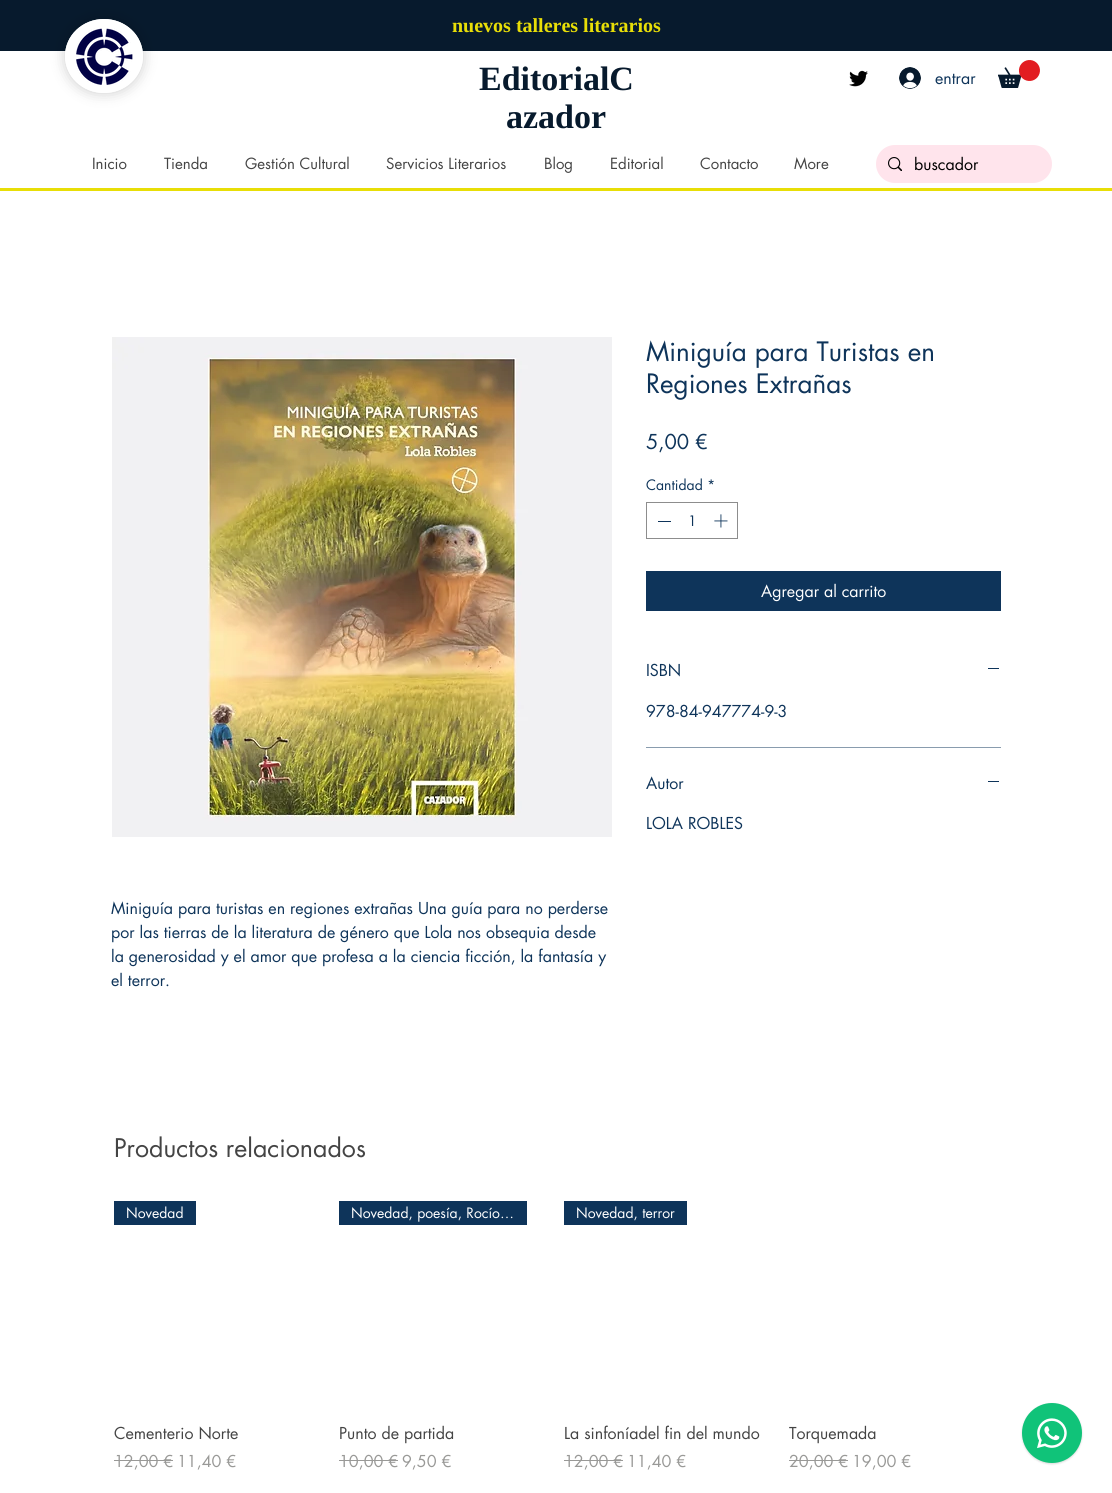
import math
import cairo

surface = cairo.ImageSurface(cairo.FORMAT_RGB24, 1112, 1493)
c = cairo.Context(surface)
options = cairo.FontOptions()
options.set_hint_metrics(cairo.HINT_METRICS_OFF)
options.set_hint_style(cairo.HINT_STYLE_NONE)
c.set_font_options(options)
c.set_miter_limit(4)
def C(code):
 c.set_source_rgb(*(v / 255 for v in bytes.fromhex(code[-6:])))
def F(family, size, italic, bold):
 c.select_font_face(family, cairo.FONT_SLANT_ITALIC if italic else cairo.FONT_SLANT_NORMAL, cairo.FONT_WEIGHT_BOLD if bold else cairo.FONT_WEIGHT_NORMAL)
 c.set_font_size(size)
def T(x, y, s):
 c.move_to(x, y)
 c.show_text(s)
def R(x, y, w, h):
 c.rectangle(x, y, w, h)
 c.fill()
def Q(x, y, w, h, r):
 c.new_sub_path()
 for i, (u, v) in enumerate([(x + w - r, y + h - r), (x + r, y + h - r), (x + r, y + r), (x + w - r, y + r)]):
  c.arc(u, v, r, i * math.pi / 2, (i + 1) * math.pi / 2)
 c.close_path()
def S(x, y, w, h, r, blur, alpha):
 c.push_group_with_content(cairo.CONTENT_ALPHA)
 c.set_operator(cairo.OPERATOR_SOURCE)
 for i in range(15, -16, -2):
  e = blur * i / 6
  if min(w, h) + 2 * e > 0:
   c.set_source_rgba(0, 0, 0, alpha * math.erfc((i - 1) / 8.5) / 2)
   Q(x - e, y - e, w + 2 * e, h + 2 * e, max(0, min(r + e + blur * .6, min(w, h) / 2 + e)))
   c.fill()
 c.mask(c.pop_group())
def I(path, x, y, w, h):
 c.save()
 c.set_source_surface(cairo.ImageSurface.create_from_png(path), x, y)
 c.rectangle(x, y, w, h)
 c.fill()
 c.restore()
C('ffffff')
c.paint()
C('071a2d')
R(0,0,1112,51)
C('000000')
S(65,19,78,74,37,7,.2)
C('ffffff')
c.new_path()
c.move_to(104,19)
c.curve_to(125.5,19,143,35.5,143,56)
c.curve_to(143,76.5,125.5,93,104,93)
c.curve_to(82.5,93,65,76.5,65,56)
c.curve_to(65,35.5,82.5,19,104,19)
c.close_path()
c.fill()
c.new_path()
c.move_to(104,21)
c.curve_to(124.5,21,141,36.5,141,56)
c.curve_to(141,75.5,124.5,91,104,91)
c.curve_to(83.5,91,67,75.5,67,56)
c.curve_to(67,36.5,83.5,21,104,21)
c.close_path()
c.set_line_width(4)
c.stroke()
I('1.png',76,28,57,57)
F('Liberation Serif',20,0,1)
C('e8de07')
T(452,32,'nuevos talleres literarios')
F('Liberation Serif',34,0,1)
C('071a2d')
T(479,90,'EditorialC')
T(506,128,'azador')
I('2.png',849,70,19,17)
I('3.png',899,67,22,22)
F('futura',16,0,0)
C('0e345a')
T(935,84,'entrar')
I('4.png',998,60,42,28)
F('futura',15,0,0)
C('444444')
T(92,169,'Inicio')
T(164,169,'Tienda')
T(245,169,'Gestión Cultural')
T(386,169,'Servicios Literarios')
T(544,169,'Blog')
T(610,169,'Editorial')
T(700,169,'Contacto')
T(794,169,'More')
C('ffe4ec')
Q(876,145,176,38,19)
c.fill()
I('5.png',888,157,14,14)
F('futura',16,0,0)
C('000000')
T(914,170,'buscador')
C('e8de07')
R(0,188,1112,3)
F('futura',26,0,0)
C('0e345a')
T(646,361,'Miniguía para Turistas en')
T(646,393,'Regiones Extrañas')
F('futura',20,0,0)
T(646,449,'5,00 €')
F('futura',14,0,0)
T(646,490,'Cantidad')
T(707,490,'*')
c.rectangle(646.5,502.5,91,36)
C('8d8d8d')
c.set_line_width(1)
c.stroke()
C('0e345a')
R(658,521,13,1)
T(688,526,'1')
I('6.png',714,514,14,14)
R(646,571,355,40)
F('futura',16,0,0)
C('ffffff')
T(761,597,'Agregar al carrito')
C('899cae')
R(646,747,355,1)
C('0e345a')
T(646,676,'ISBN')
R(988,668,11,1)
T(646,717,'978-84-947774-9-3')
T(646,789,'Autor')
R(988,781,11,1)
T(646,829,'LOLA ROBLES')
I('7.png',112,337,500,500)
T(111,914,'Miniguía para turistas en regiones extrañas Una guía para no perderse')
T(111,938,'por las tierras de la literatura de género que Lola nos obsequia desde')
T(111,962,'la generosidad y el amor que profesa a la ciencia ficción, la fantasía y')
T(111,986,'el terror.')
F('futura',25,0,0)
C('444444')
T(114,1157,'Productos relacionados')
C('0e345a')
R(114,1201,82,24)
F('futura',14,0,0)
C('ffffff')
T(126,1218,'Novedad')
F('futura',16,0,0)
C('444444')
T(114,1439,'Cementerio Norte')
C('999997')
T(114,1467,'12,00 €')
R(114,1460,59,1)
T(177,1467,'11,40 €')
C('0e345a')
R(339,1201,188,24)
F('futura',14,0,0)
C('ffffff')
T(351,1218,'Novedad, poesía, Rocío…')
F('futura',16,0,0)
C('444444')
T(339,1439,'Punto de partida')
C('999997')
T(339,1467,'10,00 €')
R(339,1460,59,1)
T(402,1467,'9,50 €')
C('0e345a')
R(564,1201,123,24)
F('futura',14,0,0)
C('ffffff')
T(576,1218,'Novedad, terror')
F('futura',16,0,0)
C('444444')
T(564,1439,'La sinfoníadel fin del mundo')
C('999997')
T(564,1467,'12,00 €')
R(564,1460,59,1)
T(627,1467,'11,40 €')
C('444444')
T(789,1439,'Torquemada')
C('999997')
T(789,1467,'20,00 €')
R(789,1460,59,1)
T(852,1467,'19,00 €')
C('000000')
S(1022,1404,60,60,30,1,.15)
C('10c379')
c.arc(1052,1433,30,0,2 * math.pi)
c.fill()
I('8.png',1037,1418,30,31)
surface.write_to_png('o.png')
